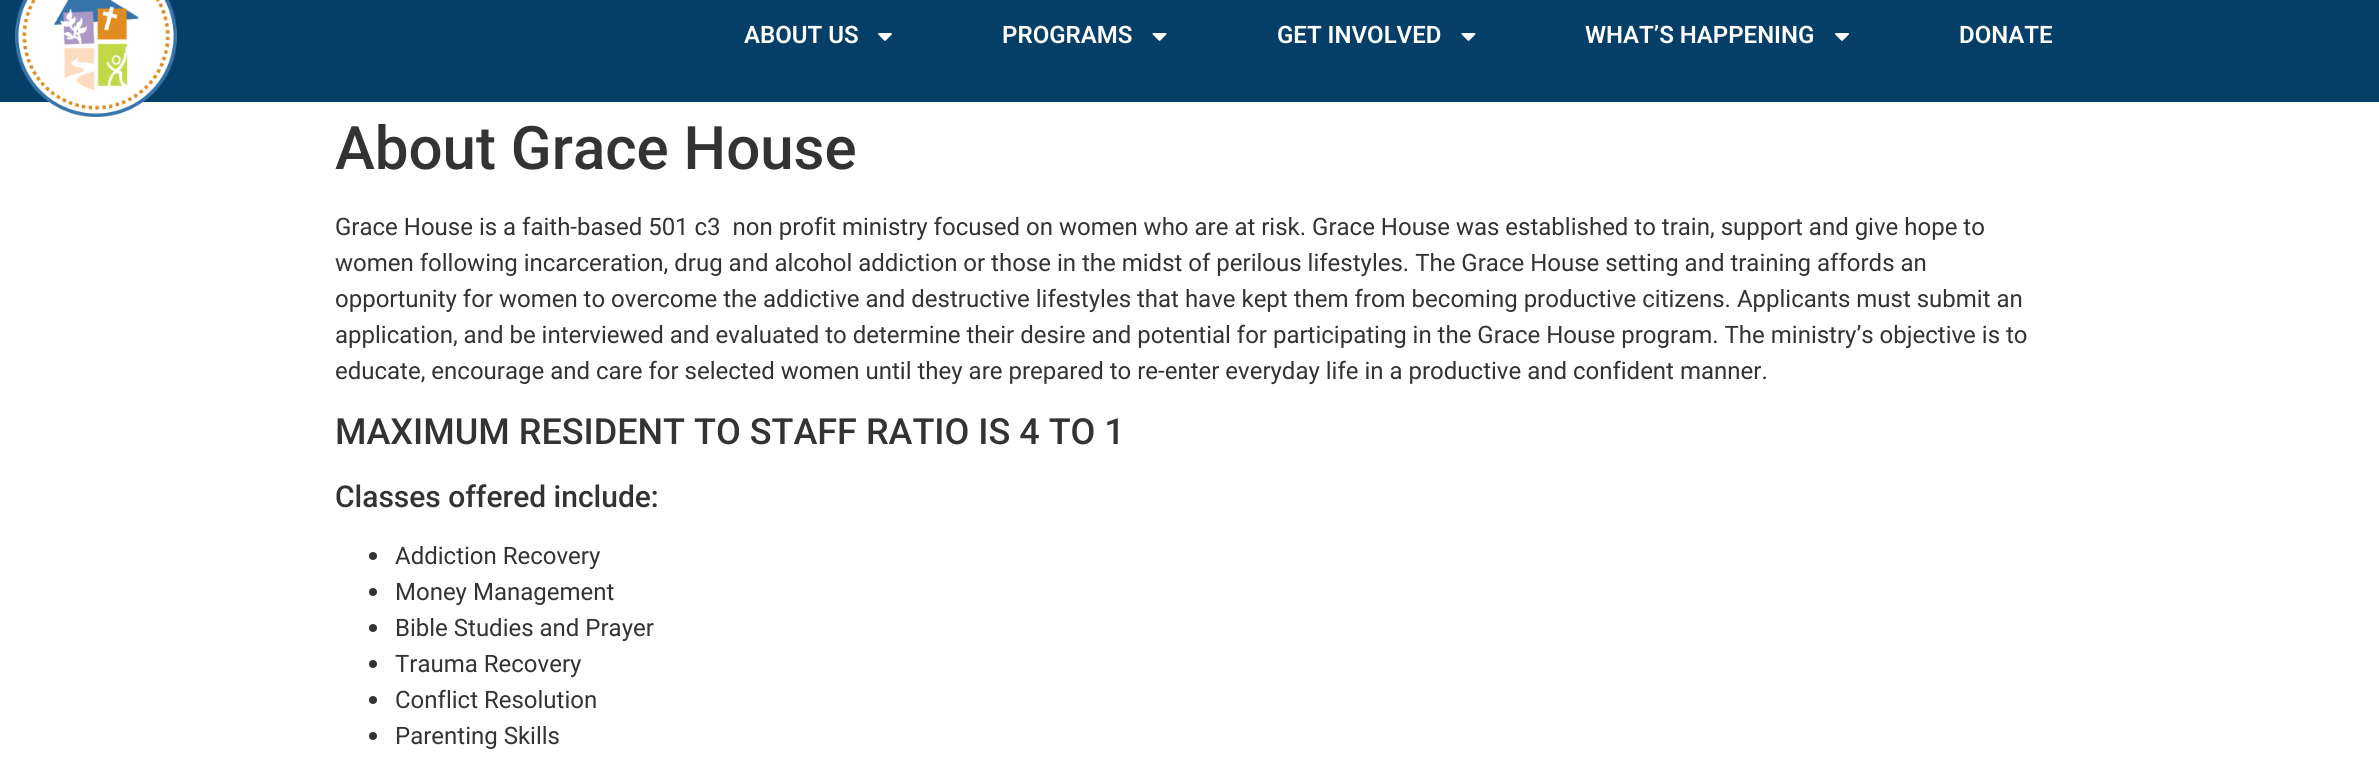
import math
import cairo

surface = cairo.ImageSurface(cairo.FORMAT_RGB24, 2379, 763)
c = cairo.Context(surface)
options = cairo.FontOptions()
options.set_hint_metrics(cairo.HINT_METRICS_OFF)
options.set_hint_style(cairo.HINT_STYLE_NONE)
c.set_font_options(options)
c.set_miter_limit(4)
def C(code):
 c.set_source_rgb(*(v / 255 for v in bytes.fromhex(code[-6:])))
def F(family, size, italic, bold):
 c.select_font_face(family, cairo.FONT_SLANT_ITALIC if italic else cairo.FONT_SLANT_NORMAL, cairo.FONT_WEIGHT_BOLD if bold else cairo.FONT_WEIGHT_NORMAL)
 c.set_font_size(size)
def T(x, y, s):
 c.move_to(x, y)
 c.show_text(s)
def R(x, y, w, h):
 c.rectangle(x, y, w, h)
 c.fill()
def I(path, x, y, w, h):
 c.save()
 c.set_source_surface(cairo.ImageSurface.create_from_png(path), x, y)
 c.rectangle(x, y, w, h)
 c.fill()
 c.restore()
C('ffffff')
c.paint()
C('053f68')
R(0,0,2379,102)
I('1.png',15,0,162,117)
F('Roboto SemiBold',24,0,0)
C('ffffff')
T(744,43,'ABOUT US')
I('2.png',878,33,14,8)
T(1002,43,'PROGRAMS')
I('3.png',1152,33,15,8)
T(1277,43,'GET INVOLVED')
I('3.png',1461,33,15,8)
T(1585,43,'WHAT’S HAPPENING')
I('2.png',1835,33,14,8)
T(1959,43,'DONATE')
F('Roboto Medium',60,0,0)
C('333333')
T(335,169,'About Grace House')
F('Roboto',24,0,0)
T(335,235,'Grace House is a faith-based 501 c3  non profit ministry focused on women who are at risk. Grace House was established to train, support and give hope to')
T(335,271,'women following incarceration, drug and alcohol addiction or those in the midst of perilous lifestyles. The Grace House setting and training affords an')
T(335,307,'opportunity for women to overcome the addictive and destructive lifestyles that have kept them from becoming productive citizens. Applicants must submit an')
T(335,343,'application, and be interviewed and evaluated to determine their desire and potential for participating in the Grace House program. The ministry’s objective is to')
T(335,379,'educate, encourage and care for selected women until they are prepared to re-enter everyday life in a productive and confident manner.')
F('Roboto Medium',36,0,0)
T(335,444,'MAXIMUM RESIDENT TO STAFF RATIO IS 4 TO 1')
F('Roboto Medium',30,0,0)
T(335,507,'Classes offered include:')
c.new_path()
c.arc(373,556,4,0,2 * math.pi)
c.fill()
F('Roboto',24,0,0)
T(395,564,'Addiction Recovery')
c.new_path()
c.arc(373,592,4,0,2 * math.pi)
c.fill()
T(395,600,'Money Management')
c.new_path()
c.arc(373,628,4,0,2 * math.pi)
c.fill()
T(395,636,'Bible Studies and Prayer')
c.new_path()
c.arc(373,664,4,0,2 * math.pi)
c.fill()
T(395,672,'Trauma Recovery')
c.new_path()
c.arc(373,700,4,0,2 * math.pi)
c.fill()
T(395,708,'Conflict Resolution')
c.new_path()
c.arc(373,736,4,0,2 * math.pi)
c.fill()
T(395,744,'Parenting Skills')
surface.write_to_png('o.png')
